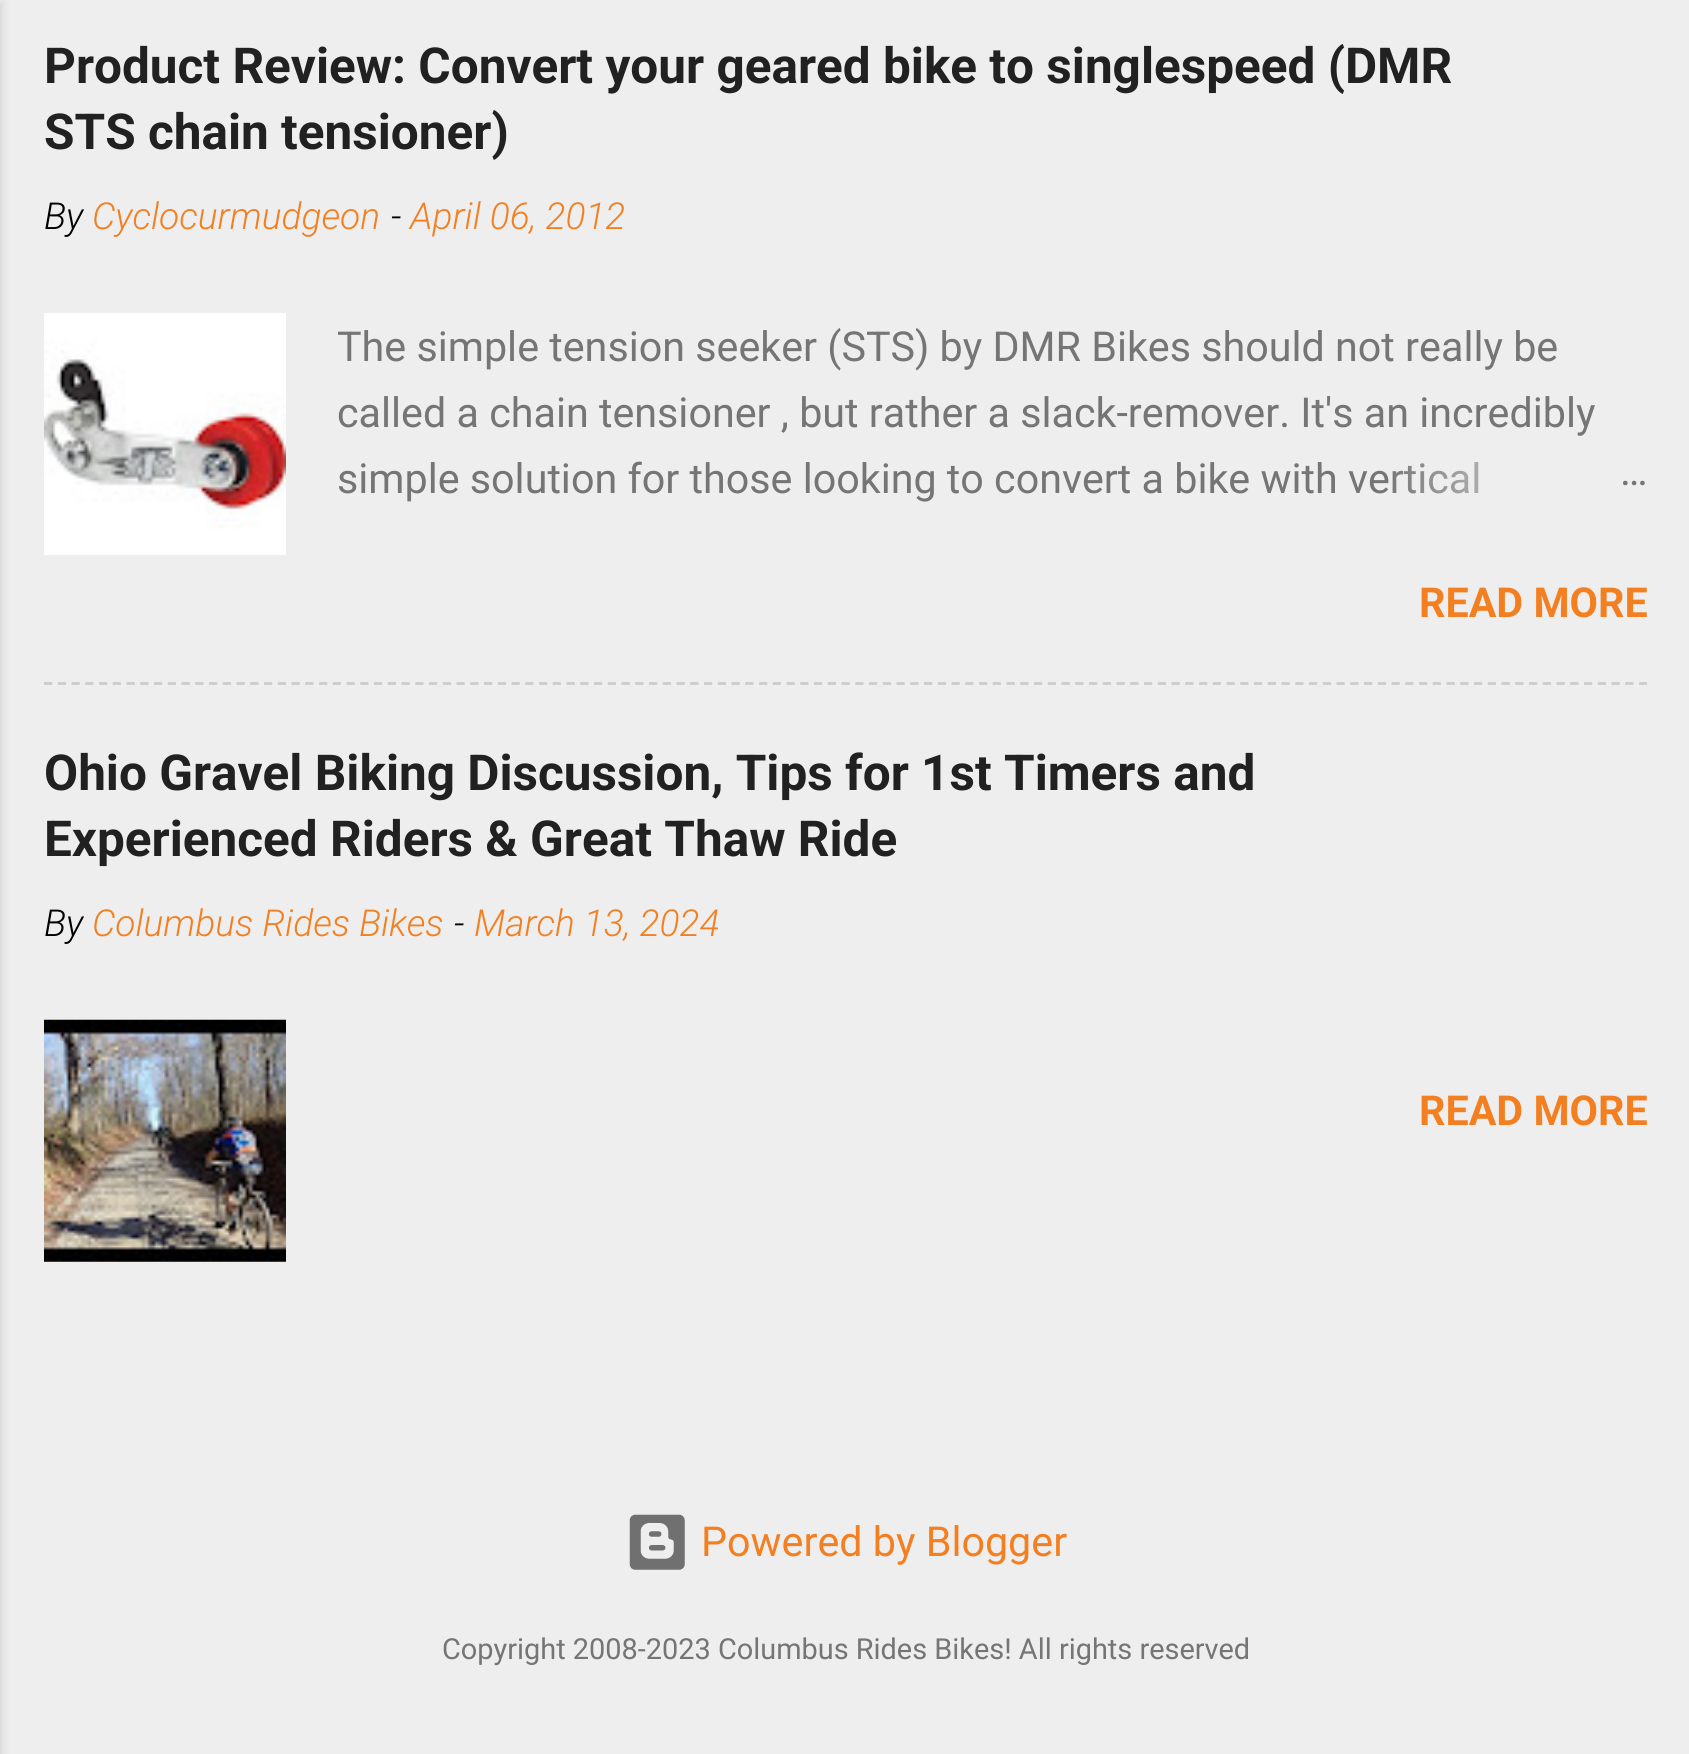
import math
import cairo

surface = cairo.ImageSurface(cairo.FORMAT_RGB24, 1689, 1754)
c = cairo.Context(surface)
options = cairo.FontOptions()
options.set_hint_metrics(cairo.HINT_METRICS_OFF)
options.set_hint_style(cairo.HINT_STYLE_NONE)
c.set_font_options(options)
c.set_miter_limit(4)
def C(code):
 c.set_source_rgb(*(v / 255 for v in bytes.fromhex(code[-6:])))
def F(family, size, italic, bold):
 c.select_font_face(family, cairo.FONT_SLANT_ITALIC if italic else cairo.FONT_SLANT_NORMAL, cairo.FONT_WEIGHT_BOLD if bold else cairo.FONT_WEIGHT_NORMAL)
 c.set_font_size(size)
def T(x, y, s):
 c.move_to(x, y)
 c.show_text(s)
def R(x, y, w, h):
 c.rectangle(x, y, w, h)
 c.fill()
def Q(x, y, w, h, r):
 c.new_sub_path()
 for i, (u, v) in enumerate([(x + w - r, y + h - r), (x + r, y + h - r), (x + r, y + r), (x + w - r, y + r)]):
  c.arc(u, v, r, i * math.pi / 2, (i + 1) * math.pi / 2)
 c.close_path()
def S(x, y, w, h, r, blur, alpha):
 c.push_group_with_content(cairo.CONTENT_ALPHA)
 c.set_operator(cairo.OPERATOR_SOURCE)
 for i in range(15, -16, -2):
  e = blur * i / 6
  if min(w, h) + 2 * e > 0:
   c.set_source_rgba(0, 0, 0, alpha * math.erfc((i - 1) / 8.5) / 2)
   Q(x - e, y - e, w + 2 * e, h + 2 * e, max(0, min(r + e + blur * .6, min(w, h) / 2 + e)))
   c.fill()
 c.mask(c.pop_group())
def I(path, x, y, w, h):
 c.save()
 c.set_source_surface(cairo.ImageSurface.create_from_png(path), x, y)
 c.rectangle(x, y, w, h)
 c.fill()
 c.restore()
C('eeeeee')
c.paint()
C('000000')
S(-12,3,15,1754,0,4,.1)
F('Roboto',49.5,0,1)
C('212121')
T(44,83,'Product Review: Convert your geared bike to singlespeed (DMR')
T(44,149,'STS chain tensioner)')
F('Roboto Light',37.1,1,0)
C('000000')
T(44,229,'By')
C('f37f21')
T(92,229,'Cyclocurmudgeon')
C('000000')
T(391,229,'-')
C('f37f21')
T(410,229,'April 06, 2012')
I('1.png',44,313,242,242)
F('Roboto',41.25,0,0)
C('757575')
T(337,361,'The simple tension seeker (STS) by DMR Bikes should not really be')
T(337,427,'called a chain tensioner , but rather a slack-remover. It\'s an incredibly')
T(337,493,'simple solution for those looking to convert a bike with vertical')
gradient = cairo.LinearGradient(1647,479,1383,479)
gradient.add_color_stop_rgba(0,0.933,0.933,0.933,1)
gradient.add_color_stop_rgba(.2,0.933,0.933,0.933,1)
gradient.add_color_stop_rgba(1,0.933,0.933,0.933,0)
c.set_source(gradient)
R(1392,462,86,32)
C('757575')
T(1620,485,'…')
F('Roboto',41.25,0,1)
C('f37f21')
T(1419,617,'READ MORE')
c.new_path()
c.move_to(44,683.5)
c.line_to(1647,683.5)
C('cccccc')
c.set_line_width(2.8)
c.set_dash([8.25,5.5])
c.stroke()
F('Roboto',49.5,0,1)
C('212121')
T(44,790,'Ohio Gravel Biking Discussion, Tips for 1st Timers and')
T(44,856,'Experienced Riders & Great Thaw Ride')
F('Roboto Light',37.1,1,0)
C('000000')
T(44,936,'By')
C('f37f21')
T(92,936,'Columbus Rides Bikes')
C('000000')
T(454,936,'-')
C('f37f21')
T(474,936,'March 13, 2024')
I('2.png',44,1019,242,243)
F('Roboto',41.25,0,1)
T(1419,1125,'READ MORE')
I('3.png',629,1514,56,56)
F('Roboto',41.25,0,0)
T(701,1556,'Powered by Blogger')
F('Roboto',28.9,0,0)
C('757575')
T(442,1659,'Copyright 2008-2023 Columbus Rides Bikes! All rights reserved')
surface.write_to_png('o.png')
